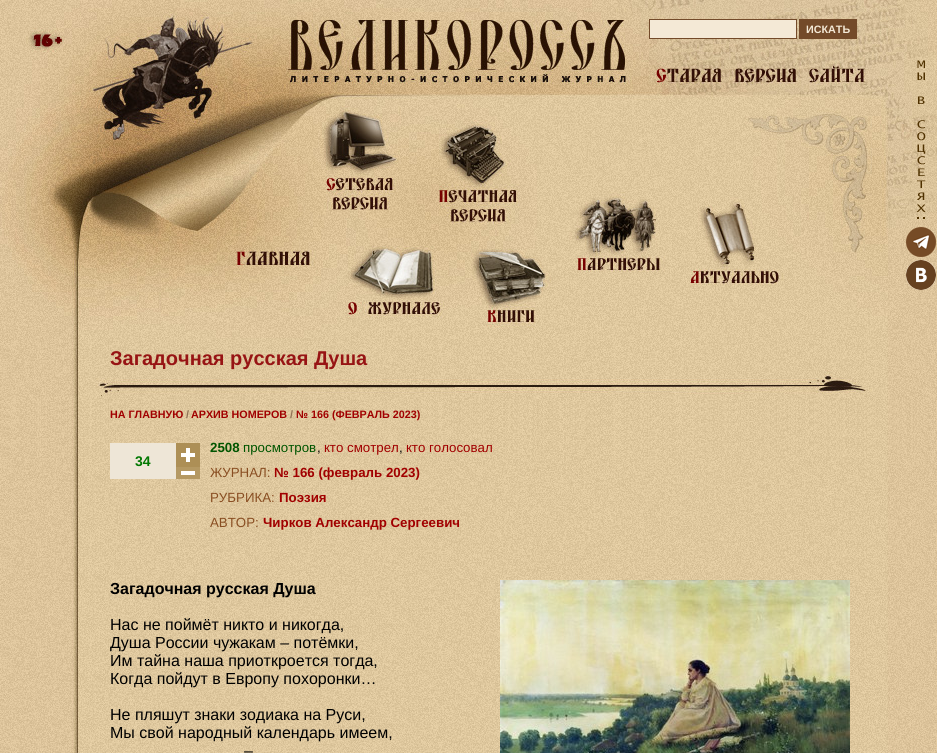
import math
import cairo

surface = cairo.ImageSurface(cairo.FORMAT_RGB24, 937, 753)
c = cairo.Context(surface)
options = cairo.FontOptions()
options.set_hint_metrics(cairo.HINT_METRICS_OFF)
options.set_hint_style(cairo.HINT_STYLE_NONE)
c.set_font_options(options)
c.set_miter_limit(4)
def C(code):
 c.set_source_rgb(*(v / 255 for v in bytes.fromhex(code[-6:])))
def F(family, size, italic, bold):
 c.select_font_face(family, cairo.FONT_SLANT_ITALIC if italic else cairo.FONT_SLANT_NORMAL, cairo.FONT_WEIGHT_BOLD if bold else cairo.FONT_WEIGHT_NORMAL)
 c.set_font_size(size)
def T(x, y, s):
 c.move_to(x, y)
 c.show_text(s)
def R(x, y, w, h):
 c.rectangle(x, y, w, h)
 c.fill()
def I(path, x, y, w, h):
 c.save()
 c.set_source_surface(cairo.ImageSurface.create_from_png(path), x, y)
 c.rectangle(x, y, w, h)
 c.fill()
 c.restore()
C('ffffff')
c.paint()
I('1.png',0,0,937,12)
I('2.png',0,12,81,318)
I('3.png',81,12,791,318)
I('4.png',82,12,180,139)
I('5.png',281,20,352,68)
C('f4e9d6')
c.rectangle(649.5,19.5,147,19)
c.fill_preserve()
C('734a29')
c.set_line_width(1)
c.stroke()
R(799,19,58,20)
F('Liberation Sans',10.75,0,1)
C('f4e9d6')
T(806,33,'ИСКАТЬ')
I('6.png',649,61,223,27)
I('7.png',318,106,82,112)
I('8.png',431,120,94,110)
I('9.png',569,192,99,86)
I('10.png',682,197,105,94)
I('11.png',228,242,90,32)
I('12.png',340,230,108,92)
I('13.png',471,241,80,89)
I('14.png',872,12,65,318)
I('15.png',916,60,10,159)
I('16.png',906,227,30,30)
I('17.png',906,260,30,30)
I('18.png',0,330,937,12)
I('19.png',0,342,937,28)
F('Liberation Sans',20,0,1)
C('971414')
T(110,365,'Загадочная русская Душа')
I('20.png',0,370,937,30)
I('21.png',0,400,937,8)
I('22.png',0,408,937,12)
F('Liberation Sans',10.75,0,1)
C('a10000')
T(110,418,'НА ГЛАВНУЮ')
C('8e7154')
T(186,418,'/')
C('a10000')
T(191,418,'АРХИВ НОМЕРОВ')
C('8e7154')
T(290,418,'/')
I('23.png',0,420,937,20)
C('a10000')
T(296,418,'№ 166 (ФЕВРАЛЬ 2023)')
I('24.png',0,440,937,313)
C('eee6d7')
R(110,443,66,36)
F('Liberation Sans',14,0,1)
C('007700')
T(135,466,'34')
C('ad8f56')
R(176,443,24,24)
I('25.png',181,448,14,14)
C('b59963')
R(176,467,24,12)
C('ffffff')
R(181,471,14,4)
F('Liberation Sans',13.3,0,1)
C('005500')
T(210,452,'2508')
F('Liberation Sans',13.3,0,0)
T(243,452,'просмотров')
C('000000')
T(317,452,',')
C('a10000')
T(324,452,'кто смотрел')
C('000000')
T(399,452,',')
C('a10000')
T(406,452,'кто голосовал')
C('894e22')
T(210,477,'ЖУРНАЛ:')
F('Liberation Sans',13.3,0,1)
C('a10000')
T(274,477,'№ 166 (февраль 2023)')
F('Liberation Sans',13.3,0,0)
C('894e22')
T(210,502,'РУБРИКА:')
F('Liberation Sans',13.3,0,1)
C('a10000')
T(279,502,'Поэзия')
F('Liberation Sans',13.3,0,0)
C('894e22')
T(210,527,'АВТОР:')
F('Liberation Sans',13.3,0,1)
C('a10000')
T(263,527,'Чирков Александр Сергеевич')
F('Liberation Sans',16,0,1)
C('000000')
T(110,594,'Загадочная русская Душа')
I('26.png',500,580,350,173)
F('Liberation Sans',16,0,0)
T(110,630,'Нас не поймёт никто и никогда,')
T(110,648,'Душа России чужакам – потёмки,')
T(110,666,'Им тайна наша приоткроется тогда,')
T(110,684,'Когда пойдут в Европу похоронки…')
T(110,720,'Не пляшут знаки зодиака на Руси,')
T(110,738,'Мы свой народный календарь имеем,')
T(244,756,'–')
surface.write_to_png('o.png')
